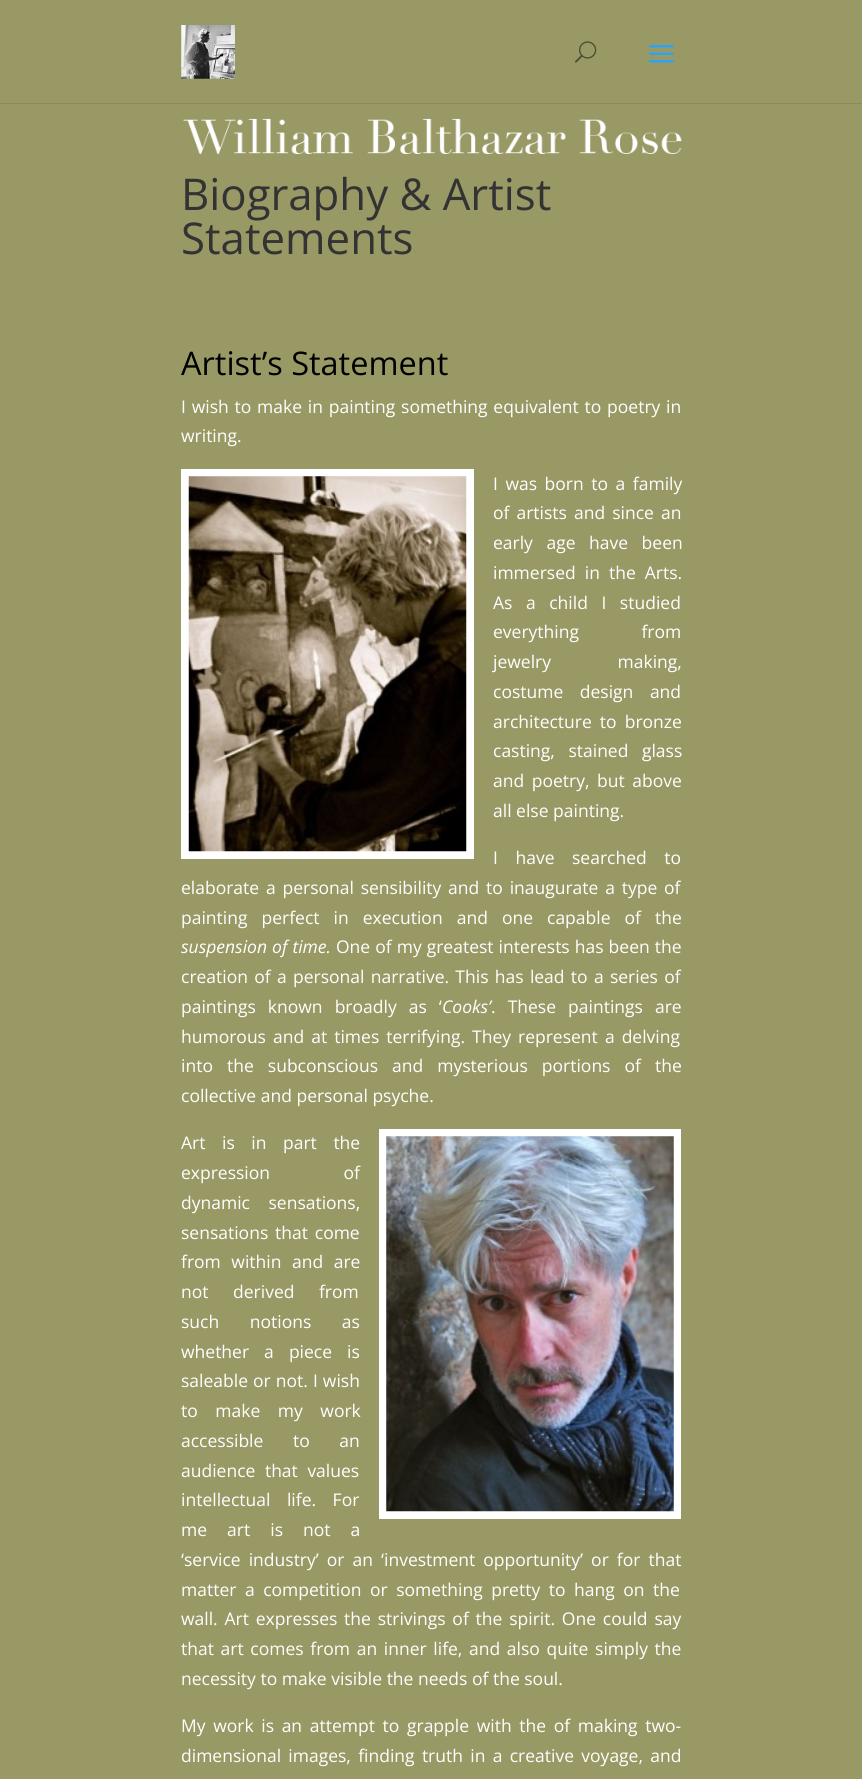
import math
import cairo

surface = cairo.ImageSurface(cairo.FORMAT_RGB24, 862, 1779)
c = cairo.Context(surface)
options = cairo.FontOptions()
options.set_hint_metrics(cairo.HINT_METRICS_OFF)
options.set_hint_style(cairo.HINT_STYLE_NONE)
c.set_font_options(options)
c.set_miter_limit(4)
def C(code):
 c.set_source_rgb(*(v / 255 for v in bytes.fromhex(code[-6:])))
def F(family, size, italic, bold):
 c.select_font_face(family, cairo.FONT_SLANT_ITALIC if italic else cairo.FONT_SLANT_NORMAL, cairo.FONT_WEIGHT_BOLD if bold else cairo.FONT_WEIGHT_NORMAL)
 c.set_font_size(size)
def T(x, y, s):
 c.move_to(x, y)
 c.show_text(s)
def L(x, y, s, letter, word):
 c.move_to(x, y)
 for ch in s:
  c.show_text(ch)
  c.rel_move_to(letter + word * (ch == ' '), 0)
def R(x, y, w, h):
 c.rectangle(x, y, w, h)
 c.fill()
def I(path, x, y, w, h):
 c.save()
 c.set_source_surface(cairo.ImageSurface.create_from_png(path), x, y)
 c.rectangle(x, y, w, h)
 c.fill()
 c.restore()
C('999966')
c.paint()
C('8a8a5c')
c.new_path()
c.move_to(0,102)
c.line_to(0,104)
c.line_to(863,104)
c.line_to(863,1)
c.line_to(862,1)
c.line_to(862,102)
c.close_path()
c.fill()
C('999966')
R(0,102,862,1)
I('1.png',181,25,54,54)
I('2.png',575,41,22,22)
I('3.png',648,45,26,18)
I('4.png',183,118,499,36)
F('Open Sans',43.75,0,0)
C('333333')
T(181,210,'Biography & Artist')
T(181,254,'Statements')
F('Open Sans',32.5,0,0)
C('000000')
T(181,375,'Artist’s Statement')
F('Open Sans',17.5,0,0)
C('ffffff')
L(181,413,'I wish to make in painting something equivalent to poetry in',0,1.25)
T(181,442,'writing.')
c.rectangle(185,473,285,382)
c.set_line_width(8)
c.stroke()
I('5.png',188,476,279,376)
L(493,490,'I was born to a family',0,3)
L(493,519,'of artists and since an',0,2.5)
L(493,549,'early age have been',0,9)
L(493,579,'immersed in the Arts.',0,4.5)
L(493,609,'As a child I studied',0,9)
L(493,638,'everything from',0,58)
L(493,668,'jewelry making,',0,62)
L(493,698,'costume design and',0,12)
L(493,728,'architecture to bronze',0,3.5)
L(493,757,'casting, stained glass',0,9)
L(493,787,'and poetry, but above',0,3)
T(493,817,'all else painting.')
L(493,864,'I have searched to',0,13)
L(181,894,'elaborate a personal sensibility and to inaugurate a type of',0,2.25)
L(181,924,'painting perfect in execution and one capable of the',0,9.5)
F('Open Sans',17.5,1,0)
L(181,953,'suspension of time.',0,.5)
F('Open Sans',17.5,0,0)
L(336,953,'One of my greatest interests has been the',0,.5)
L(181,983,'creation of a personal narrative. This has lead to a series of',0,1.75)
L(181,1013,'paintings known broadly as ‘',0,7.5)
F('Open Sans',17.5,1,0)
T(442,1013,'Cooks’')
F('Open Sans',17.5,0,0)
L(491,1013,'. These paintings are',0,7.5)
L(181,1043,'humorous and at times terrifying. They represent a delving',0,2.5)
L(181,1072,'into the subconscious and mysterious portions of the',0,9.5)
T(181,1102,'collective and personal psyche.')
L(181,1149,'Art is in part the',0,12)
c.rectangle(383,1133,294,382)
c.stroke()
I('6.png',386,1136,288,376)
L(181,1179,'expression of',0,69)
L(181,1209,'dynamic sensations,',0,14)
L(181,1239,'sensations that come',0,2.25)
L(181,1268,'from within and are',0,6)
L(181,1298,'not derived from',0,20)
L(181,1328,'such notions as',0,26)
L(181,1358,'whether a piece is',0,10.5)
L(181,1387,'saleable or not. I wish',0,.5)
L(181,1417,'to make my work',0,13)
L(181,1447,'accessible to an',0,25)
L(181,1477,'audience that values',0,5)
L(181,1506,'intellectual life. For',0,12)
L(181,1536,'me art is not a',0,15.5)
L(181,1566,'‘service industry’ or an ‘investment opportunity’ or for that',0,3.5)
L(181,1596,'matter a competition or something pretty to hang on the',0,4)
L(181,1625,'wall. Art expresses the strivings of the spirit. One could say',0,2.25)
L(181,1655,'that art comes from an inner life, and also quite simply the',0,2.1)
T(181,1685,'necessity to make visible the needs of the soul.')
L(181,1732,'My work is an attempt to grapple with the of making two-',0,3.1)
L(181,1762,'dimensional images, finding truth in a creative voyage, and',0,2.75)
surface.write_to_png('o.png')
